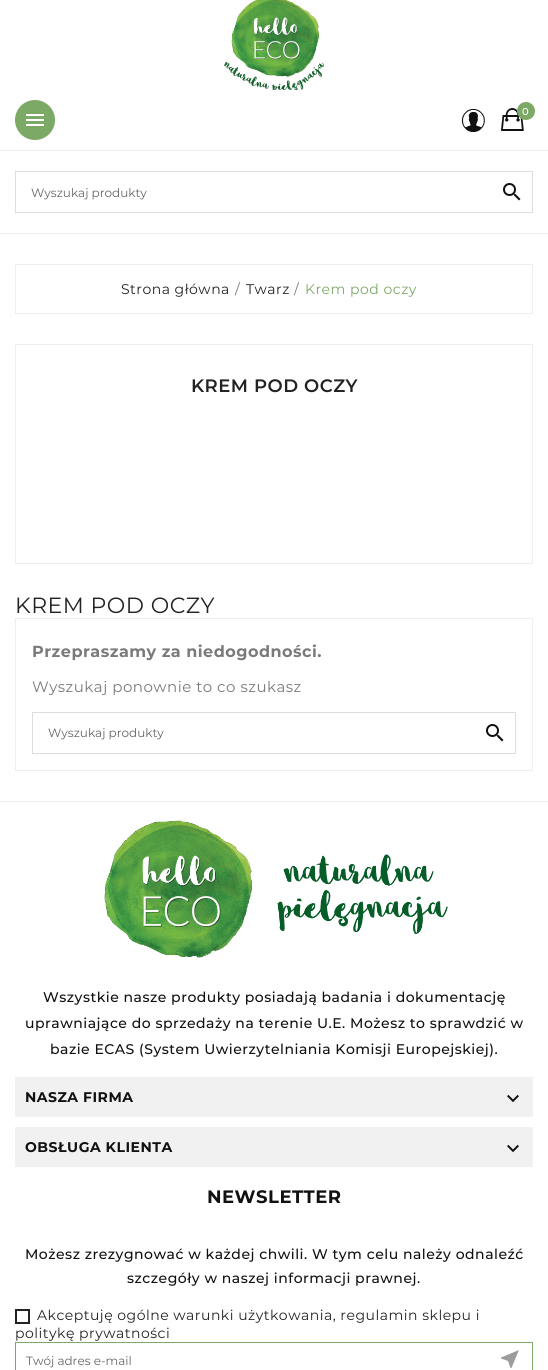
import math
import cairo

surface = cairo.ImageSurface(cairo.FORMAT_RGB24, 548, 1370)
c = cairo.Context(surface)
options = cairo.FontOptions()
options.set_hint_metrics(cairo.HINT_METRICS_OFF)
options.set_hint_style(cairo.HINT_STYLE_NONE)
c.set_font_options(options)
c.set_miter_limit(4)
def C(code):
 c.set_source_rgb(*(v / 255 for v in bytes.fromhex(code[-6:])))
def F(family, size, italic, bold):
 c.select_font_face(family, cairo.FONT_SLANT_ITALIC if italic else cairo.FONT_SLANT_NORMAL, cairo.FONT_WEIGHT_BOLD if bold else cairo.FONT_WEIGHT_NORMAL)
 c.set_font_size(size)
def T(x, y, s):
 c.move_to(x, y)
 c.show_text(s)
def L(x, y, s, letter, word):
 c.move_to(x, y)
 for ch in s:
  c.show_text(ch)
  c.rel_move_to(letter + word * (ch == ' '), 0)
def R(x, y, w, h):
 c.rectangle(x, y, w, h)
 c.fill()
def I(path, x, y, w, h):
 c.save()
 c.set_source_surface(cairo.ImageSurface.create_from_png(path), x, y)
 c.rectangle(x, y, w, h)
 c.fill()
 c.restore()
C('ffffff')
c.paint()
C('eeeeee')
R(0,233,548,1)
R(0,150,548,1)
I('1.png',224,0,100,90)
C('7ca966')
c.arc(35,120,20,0,2 * math.pi)
c.fill()
I('2.png',26,114,18,12)
I('3.png',461,109,24,23)
I('4.png',501,108,23,23)
c.arc(526,111,9,0,2 * math.pi)
c.fill()
F('Montserrat Medium',10,0,0)
C('ffffff')
L(522,115,'0',.5,0)
c.rectangle(15.5,171.5,517,41)
C('dddddd')
c.set_line_width(1)
c.stroke()
F('Montserrat',12,0,0)
C('666666')
T(31,197,'Wyszukaj produkty')
I('5.png',503,183,18,18)
c.rectangle(15.5,264.5,517,49)
C('eeeeee')
c.stroke()
F('Montserrat',14,0,0)
C('232323')
L(121,294,'Strona główna',.5,0)
C('7a7a7a')
L(235,294,'/',.5,0)
C('232323')
L(246,294,'Twarz',.5,0)
C('7a7a7a')
L(294,294,'/',.5,0)
C('7ca966')
L(305,294,'Krem pod oczy',.5,0)
c.rectangle(15.5,344.5,517,219)
C('eeeeee')
c.stroke()
F('Montserrat SemiBold',18,0,0)
C('232323')
L(191,392,'KREM POD OCZY',.5,0)
F('Montserrat',22,0,0)
L(15,613,'KREM POD OCZY',.5,0)
c.rectangle(15.5,618.5,517,152)
C('eeeeee')
c.stroke()
F('Montserrat',16,0,1)
C('7a7a7a')
L(32,657,'Przepraszamy za niedogodności.',.5,0)
F('Montserrat',15,0,0)
L(32,692,'Wyszukaj ponownie to co szukasz',.5,0)
c.rectangle(32.5,712.5,483,41)
C('dddddd')
c.stroke()
F('Montserrat',12,0,0)
C('666666')
T(48,737,'Wyszukaj produkty')
I('5.png',486,724,18,18)
C('eeeeee')
R(0,801,548,1)
I('6.png',104,820,344,138)
F('Montserrat Medium',14,0,0)
C('111111')
L(43,1002,'Wszystkie nasze produkty posiadają badania i dokumentację',.5,0)
L(25,1028,'uprawniające do sprzedaży na terenie U.E. Możesz to sprawdzić w',.5,0)
L(50,1054,'bazie ECAS (System Uwierzytelniania Komisji Europejskiej).',.5,0)
C('f1f1f1')
R(15,1077,518,40)
F('Montserrat',14,0,1)
C('111111')
L(25,1102,'NASZA FIRMA',.5,0)
I('7.png',507,1094,12,9)
C('f1f1f1')
R(15,1127,518,40)
C('111111')
L(25,1152,'OBSŁUGA KLIENTA',.5,0)
I('7.png',507,1144,12,9)
F('Montserrat',18,0,1)
L(207,1203,'NEWSLETTER',.5,0)
F('Montserrat Medium',14,0,0)
L(25,1259,'Możesz zrezygnować w każdej chwili. W tym celu należy odnaleźć',.5,0)
L(127,1283,'szczegóły w naszej informacji prawnej.',.5,0)
c.rectangle(16,1310,13,13)
C('232323')
c.set_line_width(2)
c.stroke()
F('Montserrat',14,0,0)
L(37,1320,'Akceptuję ogólne warunki użytkowania, regulamin sklepu i',.5,0)
L(15,1338,'politykę prywatności',.5,0)
c.rectangle(15.5,1342.5,517,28)
C('7ca966')
c.set_line_width(1)
c.stroke()
F('Montserrat',12,0,0)
C('666666')
T(26,1365,'Twój adres e-mail')
C('9c9c9c')
c.new_path()
c.move_to(519,1350)
c.line_to(511.5,1368)
c.line_to(510.5,1368)
c.line_to(508,1361)
c.line_to(501,1358.5)
c.line_to(501,1357.5)
c.close_path()
c.fill()
surface.write_to_png('o.png')
